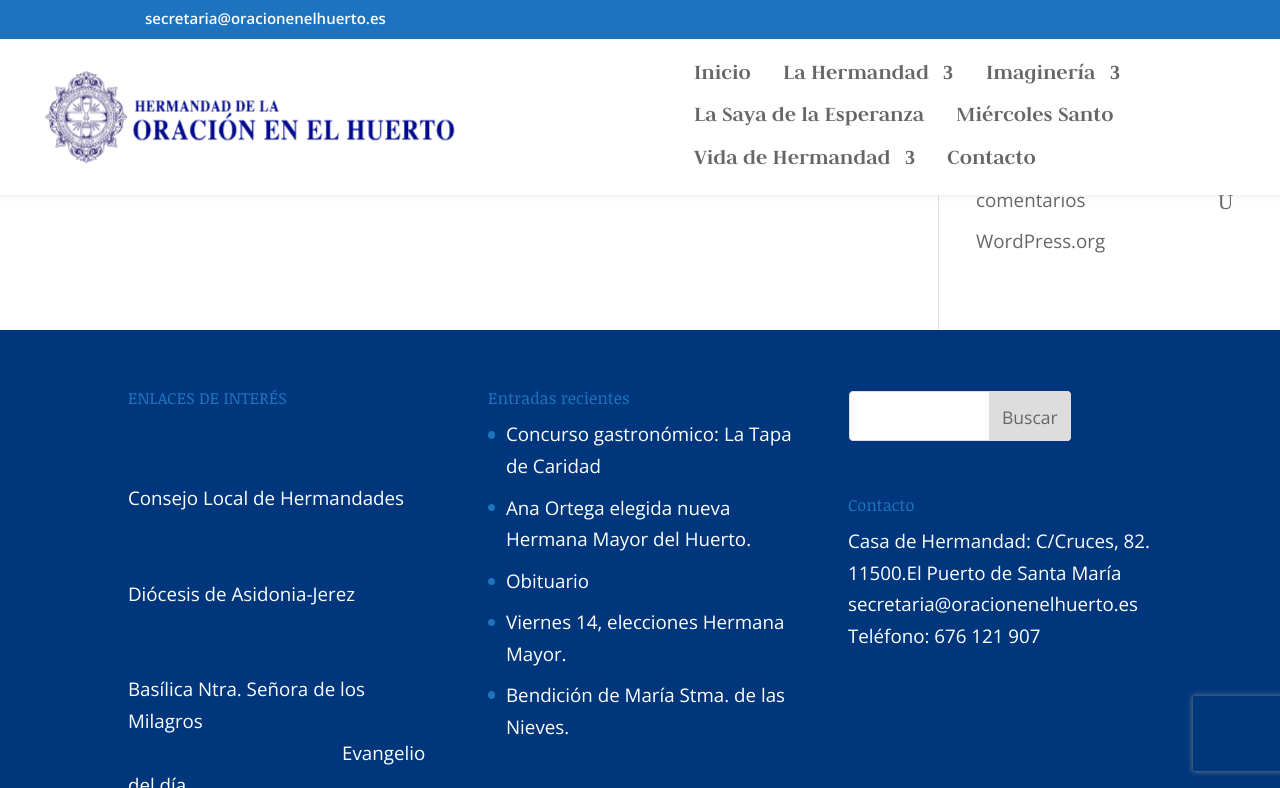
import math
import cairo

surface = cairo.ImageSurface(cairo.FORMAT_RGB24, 1280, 788)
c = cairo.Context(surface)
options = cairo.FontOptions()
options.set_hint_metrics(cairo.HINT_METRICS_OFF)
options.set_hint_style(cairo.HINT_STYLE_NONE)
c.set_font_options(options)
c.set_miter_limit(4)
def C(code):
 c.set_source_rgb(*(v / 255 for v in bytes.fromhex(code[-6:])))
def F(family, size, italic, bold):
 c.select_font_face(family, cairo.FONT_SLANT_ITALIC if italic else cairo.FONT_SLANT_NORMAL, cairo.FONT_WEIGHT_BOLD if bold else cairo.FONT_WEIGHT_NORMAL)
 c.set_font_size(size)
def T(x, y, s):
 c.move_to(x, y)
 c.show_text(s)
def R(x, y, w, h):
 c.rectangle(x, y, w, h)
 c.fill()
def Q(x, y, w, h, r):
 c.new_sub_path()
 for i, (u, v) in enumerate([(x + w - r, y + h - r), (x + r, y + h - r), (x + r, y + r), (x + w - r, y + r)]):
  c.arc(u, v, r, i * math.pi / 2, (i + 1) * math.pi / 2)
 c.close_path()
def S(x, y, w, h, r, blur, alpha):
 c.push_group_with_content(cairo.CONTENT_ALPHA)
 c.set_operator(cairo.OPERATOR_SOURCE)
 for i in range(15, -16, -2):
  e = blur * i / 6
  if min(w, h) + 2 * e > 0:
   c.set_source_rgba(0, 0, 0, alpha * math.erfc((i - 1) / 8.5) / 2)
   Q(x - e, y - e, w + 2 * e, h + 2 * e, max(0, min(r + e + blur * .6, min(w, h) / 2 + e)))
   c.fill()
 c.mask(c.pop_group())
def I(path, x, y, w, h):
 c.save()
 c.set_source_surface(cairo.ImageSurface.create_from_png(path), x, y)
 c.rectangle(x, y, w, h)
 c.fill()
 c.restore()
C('ffffff')
c.paint()
C('e2e2e2')
R(938,195,1,135)
C('000000')
S(0,39,1280,156,0,4.5,.1)
C('1e73be')
R(0,0,1280,39)
F('Open Sans SemiBold',15,0,0)
C('ffffff')
T(145,24,'secretaria@oracionenelhuerto.es')
F('Open Sans',18.75,0,0)
C('666666')
T(976,207,'comentarios')
C('ffffff')
R(0,39,1280,156)
I('1.png',45,71,410,93)
F('Judson',22.5,0,1)
C('666666')
T(694,79,'Inicio')
T(783,79,'La Hermandad')
F('Liberation Serif',20,0,1)
T(943,79,'3')
F('Judson',22.5,0,1)
T(986,79,'Imaginería')
F('Liberation Serif',20,0,1)
T(1110,79,'3')
F('Judson',22.5,0,1)
T(694,121,'La Saya de la Esperanza')
T(956,121,'Miércoles Santo')
T(694,164,'Vida de Hermandad')
F('Liberation Serif',20,0,1)
T(905,164,'3')
F('Judson',22.5,0,1)
T(947,164,'Contacto')
F('Liberation Serif',21,0,0)
T(1218,209,'U')
F('Open Sans',18.75,0,0)
T(976,248,'WordPress.org')
C('00367c')
R(0,330,1280,458)
F('Noticia Text',16.25,0,0)
C('1e73be')
T(128,404,'ENLACES DE INTERÉS')
F('Open Sans',18.75,0,0)
C('ffffff')
T(128,505,'Consejo Local de Hermandades')
T(128,601,'Diócesis de Asidonia-Jerez')
T(128,696,'Basílica Ntra. Señora de los')
T(128,728,'Milagros')
T(342,760,'Evangelio')
T(128,792,'del día')
F('Noticia Text',16.25,0,0)
C('1e73be')
T(488,404,'Entradas recientes')
Q(488,431,7,8,3.5)
c.fill()
F('Open Sans',18.75,0,0)
C('ffffff')
T(506,441,'Concurso gastronómico: La Tapa')
T(506,473,'de Caridad')
C('1e73be')
c.new_path()
c.arc(491.5,507.5,3.5,0,2 * math.pi)
c.fill()
C('ffffff')
T(506,515,'Ana Ortega elegida nueva')
T(506,546,'Hermana Mayor del Huerto.')
C('1e73be')
c.new_path()
c.arc(491.5,581.5,3.5,0,2 * math.pi)
c.fill()
C('ffffff')
T(506,588,'Obituario')
C('1e73be')
c.new_path()
c.arc(491.5,622.5,3.5,0,2 * math.pi)
c.fill()
C('ffffff')
T(506,629,'Viernes 14, elecciones Hermana')
T(506,661,'Mayor.')
C('1e73be')
Q(488,691,7,8,3.5)
c.fill()
C('ffffff')
T(506,702,'Bendición de María Stma. de las')
T(506,734,'Nieves.')
Q(849.5,391.5,221,49,3.5)
c.fill_preserve()
C('dddddd')
c.set_line_width(1)
c.stroke()
c.new_path()
c.move_to(989.5,391.5)
c.line_to(1067,391.5)
c.curve_to(1069,391.5,1070.5,393,1070.5,395)
c.line_to(1070.5,437)
c.curve_to(1070.5,439,1069,440.5,1067,440.5)
c.line_to(989.5,440.5)
c.close_path()
c.fill_preserve()
c.stroke()
F('Open Sans',17.5,0,0)
C('666666')
T(1002,424,'Buscar')
F('Noticia Text',16.25,0,0)
C('1e73be')
T(848,511,'Contacto')
F('Open Sans',18.75,0,0)
C('ffffff')
T(848,548,'Casa de Hermandad: C/Cruces, 82.')
T(848,580,'11500.El Puerto de Santa María')
T(848,611,'secretaria@oracionenelhuerto.es')
T(848,643,'Teléfono: 676 121 907')
c.save()
c.set_fill_rule(cairo.FILL_RULE_EVEN_ODD)
c.new_path()
c.move_to(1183,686)
c.line_to(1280,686)
c.line_to(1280,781)
c.line_to(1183,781)
c.close_path()
c.move_to(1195.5,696)
c.line_to(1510.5,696)
c.curve_to(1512,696,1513,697,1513,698.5)
c.line_to(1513,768.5)
c.curve_to(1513,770,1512,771,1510.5,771)
c.line_to(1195.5,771)
c.curve_to(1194,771,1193,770,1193,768.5)
c.line_to(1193,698.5)
c.curve_to(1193,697,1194,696,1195.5,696)
c.close_path()
c.clip()
C('808080')
S(1193,696,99,75,2.5,3,1)
c.restore()
surface.write_to_png('o.png')
